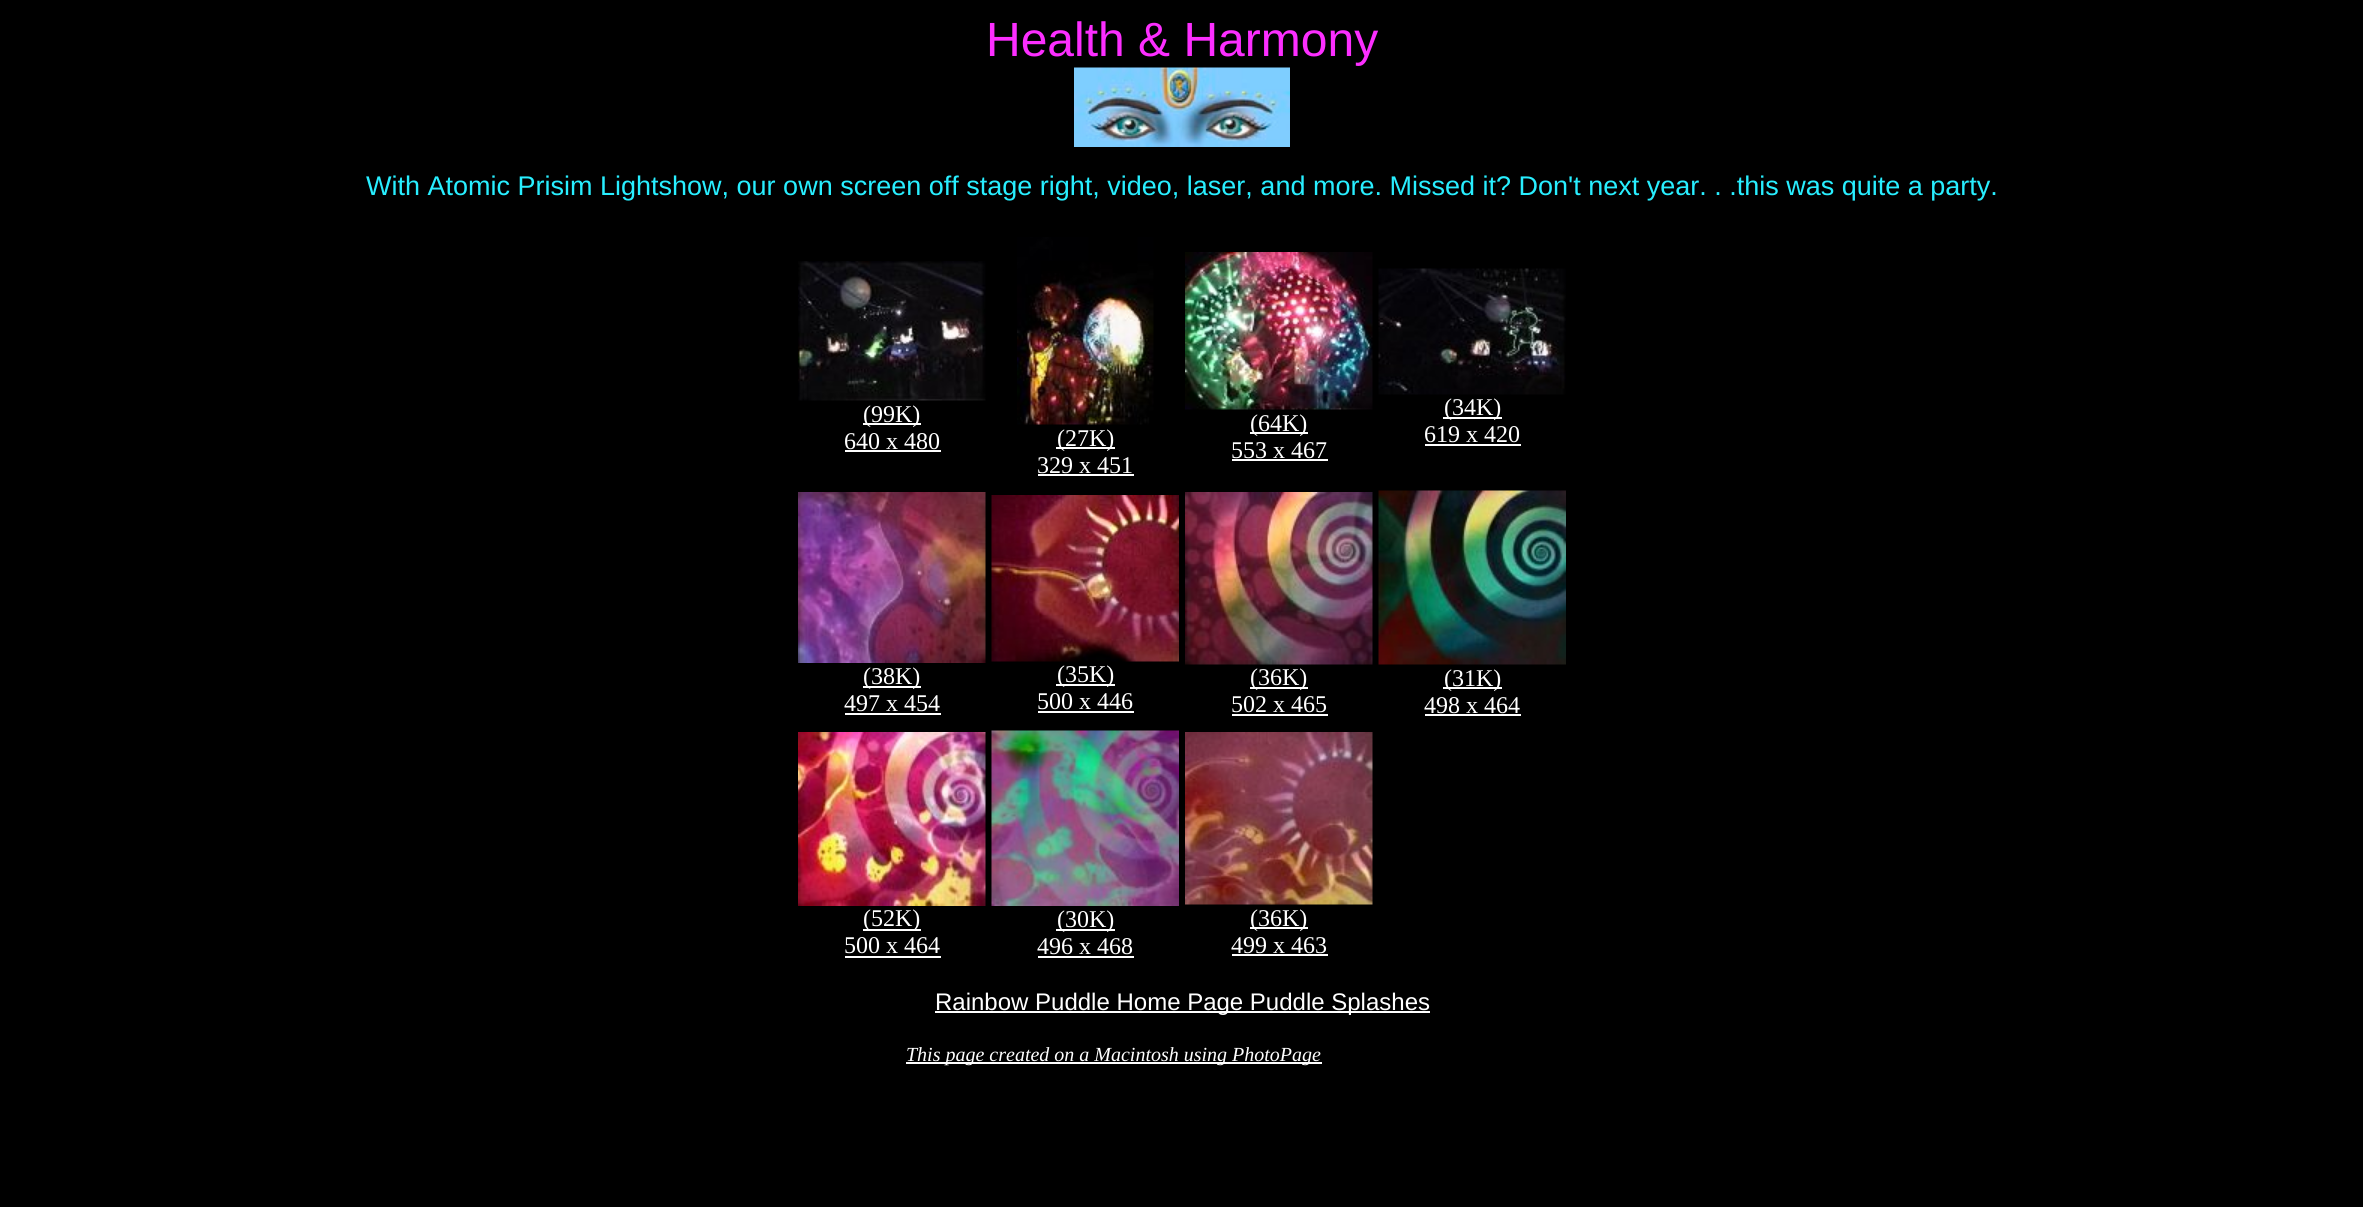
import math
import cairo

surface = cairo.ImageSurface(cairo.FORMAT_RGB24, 2363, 1207)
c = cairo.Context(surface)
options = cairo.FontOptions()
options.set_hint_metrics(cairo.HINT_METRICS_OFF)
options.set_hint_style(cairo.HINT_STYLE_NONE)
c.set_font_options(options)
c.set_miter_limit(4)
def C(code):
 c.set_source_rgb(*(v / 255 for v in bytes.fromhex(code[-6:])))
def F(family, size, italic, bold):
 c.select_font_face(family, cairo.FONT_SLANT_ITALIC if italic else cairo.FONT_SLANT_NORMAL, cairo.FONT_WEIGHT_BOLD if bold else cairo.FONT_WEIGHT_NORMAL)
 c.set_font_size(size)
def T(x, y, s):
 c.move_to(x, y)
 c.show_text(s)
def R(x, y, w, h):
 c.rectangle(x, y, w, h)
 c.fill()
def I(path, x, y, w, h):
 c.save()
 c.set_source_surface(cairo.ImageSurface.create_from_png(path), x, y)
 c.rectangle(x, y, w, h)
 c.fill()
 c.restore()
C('000000')
c.paint()
F('Liberation Sans',48,0,0)
C('fc2eff')
T(986,56,'Health & Harmony')
I('1.png',1074,67,216,80)
F('Liberation Sans',27,0,0)
C('28eeff')
T(366,195,'With Atomic Prisim Lightshow, our own screen off stage right, video, laser, and more. Missed it? Don\'t next year. . .this was quite a party.')
I('2.png',798,261,188,140)
C('ffffff')
R(863,423,58,2)
F('Liberation Serif',24,0,0)
T(863,422,'(99K)')
T(844,449,'640 x 480')
R(845,450,96,2)
I('3.png',1017,237,137,188)
R(1056,447,59,2)
T(1057,446,'(27K)')
T(1037,473,'329 x 451')
R(1038,474,96,2)
I('4.png',1185,252,188,158)
R(1250,432,58,2)
T(1250,431,'(64K)')
T(1231,458,'553 x 467')
R(1232,459,96,2)
I('5.png',1378,268,188,127)
R(1443,417,59,2)
T(1444,415,'(34K)')
T(1424,442,'619 x 420')
R(1425,444,96,2)
I('6.png',798,492,188,171)
R(863,686,58,2)
T(863,684,'(38K)')
T(844,711,'497 x 454')
R(845,713,96,2)
I('7.png',991,495,188,167)
R(1056,684,59,2)
T(1057,682,'(35K)')
T(1037,709,'500 x 446')
R(1038,711,96,2)
I('8.png',1185,492,188,173)
R(1250,687,58,2)
T(1250,685,'(36K)')
T(1231,712,'502 x 465')
R(1232,714,96,2)
I('9.png',1378,490,188,175)
R(1443,687,59,2)
T(1444,686,'(31K)')
T(1424,713,'498 x 464')
R(1425,714,96,2)
I('10.png',798,732,188,174)
R(863,929,58,2)
T(863,926,'(52K)')
T(844,953,'500 x 464')
R(845,956,96,2)
I('11.png',991,730,188,176)
R(1056,929,59,2)
T(1057,927,'(30K)')
T(1037,954,'496 x 468')
R(1038,956,96,2)
I('12.png',1185,732,188,173)
R(1250,927,58,2)
T(1250,926,'(36K)')
T(1231,953,'499 x 463')
R(1232,954,96,2)
R(935,1011,495,2)
F('Liberation Sans',24,0,0)
T(935,1010,'Rainbow Puddle Home Page Puddle Splashes')
R(906,1062,416,2)
F('Liberation Serif',20,1,0)
T(906,1061,'This page created on a Macintosh using PhotoPage')
surface.write_to_png('o.png')
